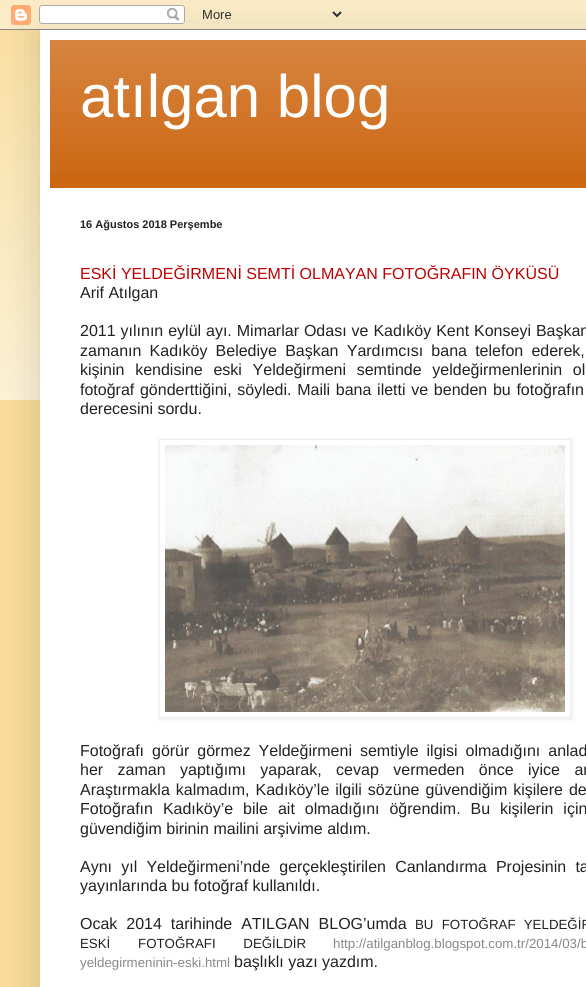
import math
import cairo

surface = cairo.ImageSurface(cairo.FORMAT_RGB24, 586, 987)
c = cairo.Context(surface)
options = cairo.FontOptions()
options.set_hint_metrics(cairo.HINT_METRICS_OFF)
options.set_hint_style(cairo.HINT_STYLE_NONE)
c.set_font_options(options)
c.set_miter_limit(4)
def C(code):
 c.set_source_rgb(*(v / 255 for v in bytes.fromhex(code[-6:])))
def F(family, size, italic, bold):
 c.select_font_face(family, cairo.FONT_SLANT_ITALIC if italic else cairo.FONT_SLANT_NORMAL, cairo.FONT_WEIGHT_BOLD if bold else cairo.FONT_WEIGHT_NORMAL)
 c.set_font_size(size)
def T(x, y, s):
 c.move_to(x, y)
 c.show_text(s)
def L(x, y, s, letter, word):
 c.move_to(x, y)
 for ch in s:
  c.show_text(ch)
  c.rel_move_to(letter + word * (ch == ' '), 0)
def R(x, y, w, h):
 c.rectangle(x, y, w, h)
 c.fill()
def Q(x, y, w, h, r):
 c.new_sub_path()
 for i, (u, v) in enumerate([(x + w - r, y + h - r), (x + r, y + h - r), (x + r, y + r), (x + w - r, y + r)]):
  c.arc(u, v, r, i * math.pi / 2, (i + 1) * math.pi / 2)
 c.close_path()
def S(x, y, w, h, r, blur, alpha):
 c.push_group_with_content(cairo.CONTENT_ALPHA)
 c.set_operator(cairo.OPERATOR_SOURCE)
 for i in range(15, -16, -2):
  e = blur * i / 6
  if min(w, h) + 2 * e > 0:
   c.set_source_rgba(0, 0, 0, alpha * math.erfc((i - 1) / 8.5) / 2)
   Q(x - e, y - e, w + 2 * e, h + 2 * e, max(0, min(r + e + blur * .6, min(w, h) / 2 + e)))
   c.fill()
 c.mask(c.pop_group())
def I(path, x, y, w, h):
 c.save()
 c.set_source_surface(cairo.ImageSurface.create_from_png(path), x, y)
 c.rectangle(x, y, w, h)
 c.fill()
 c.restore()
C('f9dc99')
c.paint()
I('1.png',0,0,586,400)
C('000000')
S(40,30,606,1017,0,20,.15)
I('2.png',0,0,586,30)
C('ffffff')
R(40,30,546,957)
C('cc6611')
R(50,40,536,148)
I('3.png',50,40,536,133)
F('Liberation Sans',60,0,0)
C('ffffff')
T(80,117,'atılgan blog')
F('Liberation Sans',11,0,1)
C('222222')
T(80,228,'16 Ağustos 2018 Perşembe')
F('Liberation Sans',16,0,0)
C('c00000')
T(80,279,'ESKİ YELDEĞİRMENİ SEMTİ OLMAYAN FOTOĞRAFIN ÖYKÜSÜ')
C('222222')
T(80,298,'Arif Atılgan')
L(80,336,'2011 yılının eylül ayı. Mimarlar Odası ve Kadıköy Kent Konseyi Başkan',0,.5)
L(80,356,'zamanın Kadıköy Belediye Başkan Yardımcısı bana telefon ederek,',0,3.75)
L(80,375,'kişinin kendisine eski Yeldeğirmeni semtinde yeldeğirmenlerinin ol',0,6.25)
L(80,395,'fotoğraf gönderttiğini, söyledi. Maili bana iletti ve benden bu fotoğrafın',0,1.25)
T(80,414,'derecesini sordu.')
c.save()
c.set_fill_rule(cairo.FILL_RULE_EVEN_ODD)
c.new_path()
c.move_to(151,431)
c.line_to(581,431)
c.line_to(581,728)
c.line_to(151,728)
c.close_path()
c.move_to(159,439)
c.line_to(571,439)
c.line_to(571,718)
c.line_to(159,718)
c.close_path()
c.clip()
C('000000')
S(160,440,412,279,0,2.5,.1)
c.restore()
c.rectangle(159.5,439.5,411,278)
C('eeeeee')
c.set_line_width(1)
c.stroke()
I('4.png',165,445,400,267)
C('222222')
L(80,756,'Fotoğrafı görür görmez Yeldeğirmeni semtiyle ilgisi olmadığını anlad',0,3.5)
L(80,775,'her zaman yaptığımı yaparak, cevap vermeden önce iyice ar',0,10)
L(80,795,'Araştırmakla kalmadım, Kadıköy’le ilgili sözüne güvendiğim kişilere de',0,1.5)
L(80,814,'Fotoğrafın Kadıköy’e bile ait olmadığını öğrendim. Bu kişilerin için',0,5.5)
T(80,834,'güvendiğim birinin mailini arşivime aldım.')
L(80,872,'Aynı yıl Yeldeğirmeni’nde gerçekleştirilen Canlandırma Projesinin ta',0,4.75)
T(80,891,'yayınlarında bu fotoğraf kullanıldı.')
L(80,929,'Ocak 2014 tarihinde ATILGAN BLOG’umda',0,4.5)
F('Liberation Sans',13.3,0,0)
L(415,929,'BU FOTOĞRAF YELDEĞİR',0,4.5)
L(80,948,'ESKİ FOTOĞRAFI DEĞİLDİR',0,24)
C('888888')
T(333,948,'http://atilganblog.blogspot.com.tr/2014/03/b')
T(80,967,'yeldegirmeninin-eski.html')
F('Liberation Sans',16,0,0)
C('222222')
T(234,967,'başlıklı yazı yazdım.')
surface.write_to_png('o.png')
